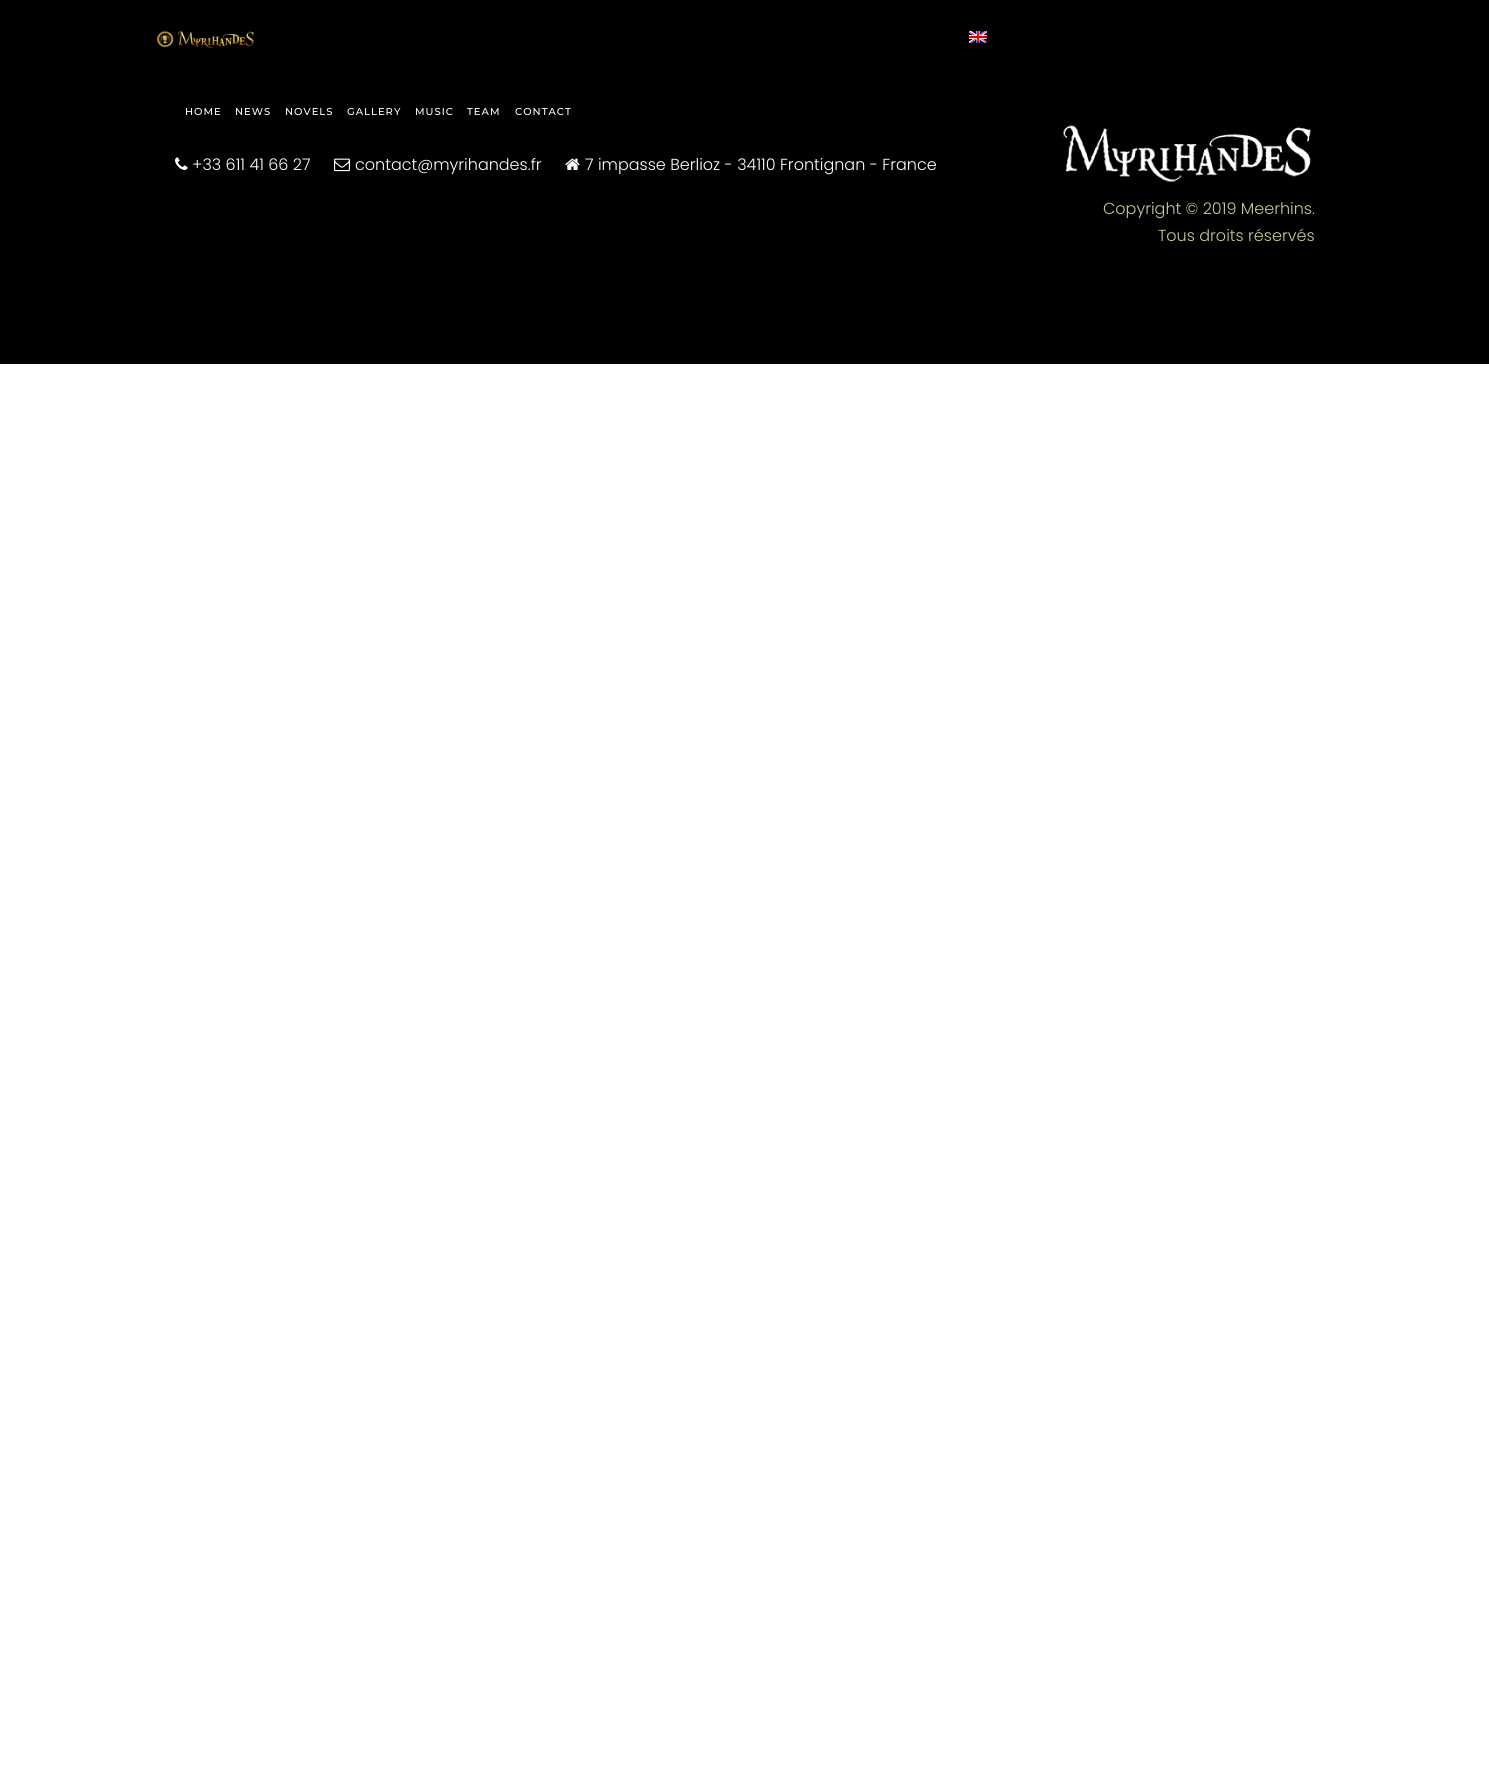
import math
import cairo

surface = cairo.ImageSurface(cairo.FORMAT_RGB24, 1489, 1769)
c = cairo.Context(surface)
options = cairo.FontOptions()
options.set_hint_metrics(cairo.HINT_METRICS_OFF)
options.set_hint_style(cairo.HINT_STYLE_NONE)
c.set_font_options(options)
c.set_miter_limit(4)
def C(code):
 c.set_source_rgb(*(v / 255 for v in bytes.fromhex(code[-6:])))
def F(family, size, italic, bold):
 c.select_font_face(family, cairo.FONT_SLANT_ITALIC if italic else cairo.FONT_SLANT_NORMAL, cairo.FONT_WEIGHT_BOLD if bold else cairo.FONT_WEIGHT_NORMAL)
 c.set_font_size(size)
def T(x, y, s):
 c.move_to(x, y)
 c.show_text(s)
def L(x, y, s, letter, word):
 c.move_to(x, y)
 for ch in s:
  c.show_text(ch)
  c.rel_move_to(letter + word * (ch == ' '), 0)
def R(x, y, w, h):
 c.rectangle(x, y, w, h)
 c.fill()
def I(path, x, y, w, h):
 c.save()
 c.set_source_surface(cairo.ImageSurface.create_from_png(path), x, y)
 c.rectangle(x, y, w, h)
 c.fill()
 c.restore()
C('ffffff')
c.paint()
C('000000')
R(0,0,1489,364)
I('1.png',156,30,98,18)
I('2.png',969,31,18,12)
F('Montserrat Medium',10,0,0)
C('ffffff')
L(185,115,'HOME',1,0)
L(235,115,'NEWS',1,0)
L(285,115,'NOVELS',1,0)
L(347,115,'GALLERY',1,0)
L(415,115,'MUSIC',1,0)
L(467,115,'TEAM',1,0)
L(515,115,'CONTACT',1,0)
I('3.png',175,157,13,13)
F('Poppins Light',16,0,0)
T(192,170,'+33 611 41 66 27')
I('4.png',334,158,16,14)
T(355,170,'contact@myrihandes.fr')
I('5.png',565,158,15,12)
T(585,170,'7 impasse Berlioz - 34110 Frontignan - France')
I('6.png',1061,125,250,57)
C('bed094')
T(1103,214,'Copyright © 2019 Meerhins.')
T(1158,241,'Tous droits réservés')
surface.write_to_png('o.png')
